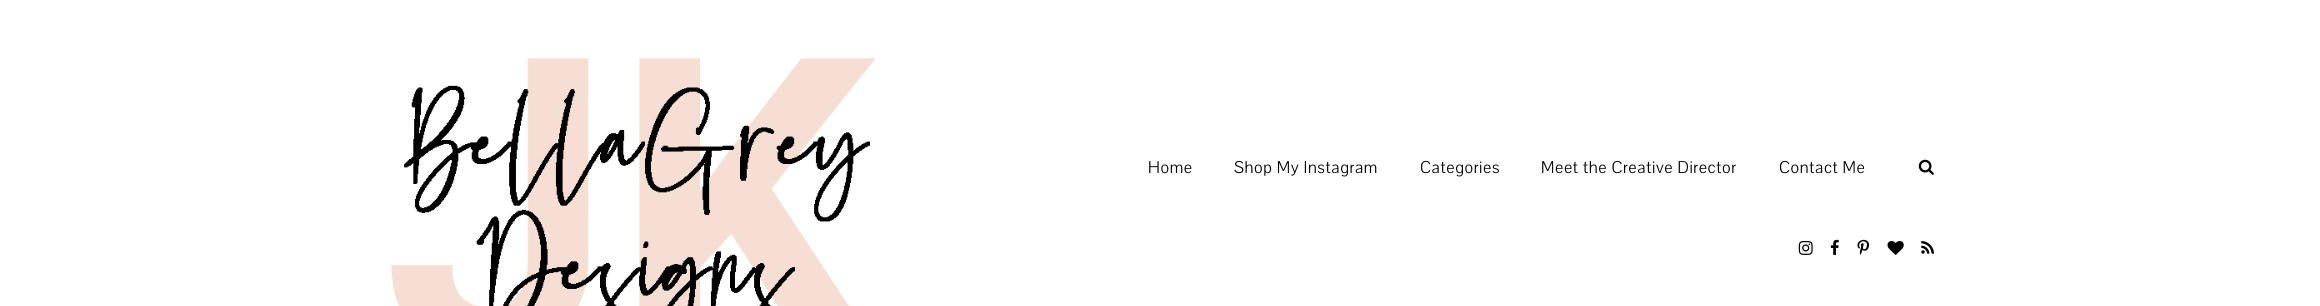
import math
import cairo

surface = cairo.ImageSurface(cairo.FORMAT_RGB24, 2320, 306)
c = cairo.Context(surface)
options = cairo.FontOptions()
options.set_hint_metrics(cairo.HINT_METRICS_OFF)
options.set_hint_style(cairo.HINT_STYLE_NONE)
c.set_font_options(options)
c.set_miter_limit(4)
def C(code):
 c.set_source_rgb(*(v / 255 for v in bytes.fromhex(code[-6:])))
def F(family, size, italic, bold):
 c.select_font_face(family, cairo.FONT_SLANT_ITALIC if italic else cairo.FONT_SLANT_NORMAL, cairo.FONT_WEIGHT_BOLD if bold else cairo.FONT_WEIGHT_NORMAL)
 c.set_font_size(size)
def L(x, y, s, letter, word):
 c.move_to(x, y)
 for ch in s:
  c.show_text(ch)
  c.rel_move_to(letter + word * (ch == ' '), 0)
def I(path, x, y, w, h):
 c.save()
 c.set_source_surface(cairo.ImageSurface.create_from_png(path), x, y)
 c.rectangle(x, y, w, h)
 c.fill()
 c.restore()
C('ffffff')
c.paint()
I('1.png',391,58,485,248)
F('Pavanam',17.5,0,0)
C('000000')
L(1148,173,'Home',.6,0)
L(1234,173,'Shop My Instagram',.6,0)
L(1420,173,'Categories',.6,0)
L(1541,173,'Meet the Creative Director',.6,0)
L(1779,173,'Contact Me',.6,0)
I('2.png',1918,159,16,16)
I('3.png',1798,241,15,14)
I('4.png',1830,239,9,16)
I('5.png',1857,239,13,16)
I('6.png',1887,241,17,14)
I('7.png',1921,241,13,13)
surface.write_to_png('o.png')
